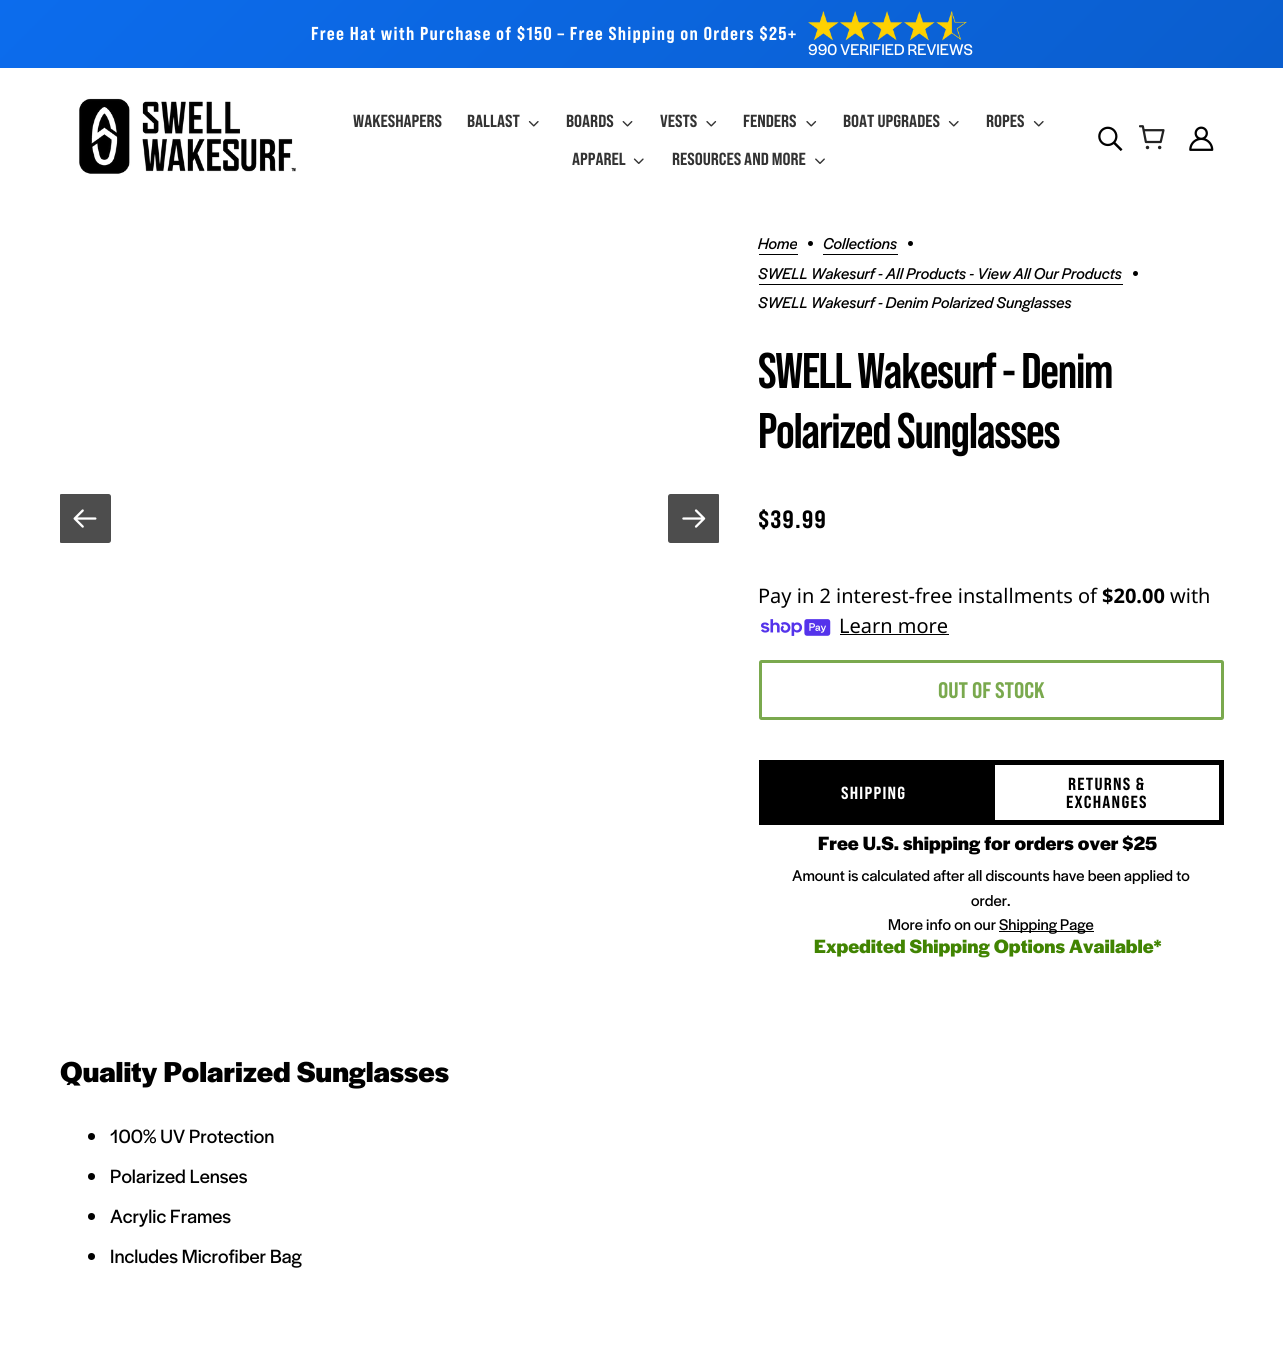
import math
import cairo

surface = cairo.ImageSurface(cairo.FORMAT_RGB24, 1283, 1370)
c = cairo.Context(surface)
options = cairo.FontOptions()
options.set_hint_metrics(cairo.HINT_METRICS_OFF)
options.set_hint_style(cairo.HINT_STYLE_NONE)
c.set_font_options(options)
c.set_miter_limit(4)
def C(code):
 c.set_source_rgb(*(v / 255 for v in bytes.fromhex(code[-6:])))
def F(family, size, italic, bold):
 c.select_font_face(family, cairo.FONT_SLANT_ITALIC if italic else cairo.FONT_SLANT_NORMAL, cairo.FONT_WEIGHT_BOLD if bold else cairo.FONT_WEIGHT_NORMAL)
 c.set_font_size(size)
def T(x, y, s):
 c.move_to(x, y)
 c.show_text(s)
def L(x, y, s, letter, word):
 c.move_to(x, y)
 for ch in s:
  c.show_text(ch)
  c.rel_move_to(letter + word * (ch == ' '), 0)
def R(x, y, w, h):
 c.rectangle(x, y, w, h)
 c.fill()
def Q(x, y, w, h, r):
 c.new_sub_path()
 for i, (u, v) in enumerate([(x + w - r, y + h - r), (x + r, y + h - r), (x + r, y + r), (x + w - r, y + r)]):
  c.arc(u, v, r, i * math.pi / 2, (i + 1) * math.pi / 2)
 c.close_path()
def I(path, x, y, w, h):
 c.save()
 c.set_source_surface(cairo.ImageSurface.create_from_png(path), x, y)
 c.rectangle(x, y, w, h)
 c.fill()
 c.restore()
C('ffffff')
c.paint()
gradient = cairo.LinearGradient(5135,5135,0,0)
gradient.add_color_stop_rgba(0,0,0,0,1)
gradient.add_color_stop_rgba(1,0.047,0.424,0.929,1)
c.set_source(gradient)
R(0,0,1283,68)
F('Bebas Neue ExtraBold',18.75,0,0)
C('ffffff')
L(311,40,'Free Hat with Purchase of $150 – Free Shipping on Orders $25+',1.25,0)
I('1.png',808,11,159,30)
F('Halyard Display',16.25,0,0)
T(808,55,'990 VERIFIED REVIEWS')
I('2.png',79,98,217,76)
F('Bebas Neue ExtraBold',17.5,0,0)
C('333333')
T(353,127,'WAKESHAPERS')
T(467,127,'BALLAST')
I('3.png',528,121,11,6)
T(566,127,'BOARDS')
I('4.png',622,121,11,6)
T(660,127,'VESTS')
I('5.png',706,121,11,6)
T(743,127,'FENDERS')
I('5.png',806,121,11,6)
T(843,127,'BOAT UPGRADES')
I('3.png',948,121,11,6)
T(986,127,'ROPES')
I('3.png',1033,121,11,6)
T(572,165,'APPAREL')
I('6.png',633,158,11,6)
T(672,165,'RESOURCES AND MORE')
I('7.png',815,158,10,6)
I('8.png',1098,126,25,25)
I('9.png',1139,125,26,25)
I('10.png',1189,126,25,25)
c.save()
c.rectangle(60,195,659,759)
c.clip()
C('4d4d4d')
Q(59,494,52,49,2.5)
c.fill()
c.restore()
I('11.png',73,509,24,19)
c.save()
c.rectangle(60,195,659,759)
c.clip()
C('4d4d4d')
Q(668,494,52,49,2.5)
c.fill()
c.restore()
I('12.png',682,509,24,19)
F('Halyard Display',16.25,1,0)
C('000000')
T(758,249,'Home')
R(759,254,39,1)
c.new_path()
c.arc(810.5,243.5,2.5,0,2 * math.pi)
c.fill()
T(823,249,'Collections')
R(823,254,75,1)
c.new_path()
c.arc(910.5,243.5,2.5,0,2 * math.pi)
c.fill()
T(758,279,'SWELL Wakesurf - All Products - View All Our Products')
R(759,284,364,1)
c.new_path()
c.arc(1135.5,273.5,2.5,0,2 * math.pi)
c.fill()
T(758,308,'SWELL Wakesurf - Denim Polarized Sunglasses')
F('Bebas Neue',50,0,1)
L(758,388,'SWELL Wakesurf - Denim',-1.25,0)
L(758,448,'Polarized Sunglasses',-1.25,0)
F('Bebas Neue ExtraBold',25,0,0)
L(758,528,'$39.99',1.25,0)
F('Noto Sans',20,0,0)
T(758,603,'Pay in 2 interest-free installments of')
F('Noto Sans',20,0,1)
T(1102,603,'$20.00')
F('Noto Sans',20,0,0)
T(1170,603,'with')
I('13.png',761,619,70,17)
T(839,633,'Learn more')
R(840,634,109,1)
Q(760.5,661.5,462,57,1)
C('7aa94e')
c.set_line_width(3)
c.stroke()
F('Bebas Neue ExtraBold',22.5,0,0)
T(938,698,'OUT OF STOCK')
C('000000')
R(759,760,231,65)
F('Bebas Neue ExtraBold',17.5,0,0)
C('ffffff')
L(841,799,'SHIPPING',1.25,0)
c.rectangle(992.5,762.5,229,60)
C('000000')
c.set_line_width(5)
c.stroke()
L(1068,790,'RETURNS &',1.25,0)
L(1066,808,'EXCHANGES',1.25,0)
F('Halyard Display',20,0,1)
T(818,850,'Free U.S. shipping for orders over $25')
F('Halyard Display',16.25,0,0)
T(792,881,'Amount is calculated after all discounts have been applied to')
T(971,906,'order.')
T(888,930,'More info on our')
R(999,931,95,1)
T(999,930,'Shipping Page')
F('Halyard Display',20,0,1)
C('418402')
T(814,953,'Expedited Shipping Options Available*')
F('Halyard Display',30,0,1)
C('000000')
T(60,1082,'Quality Polarized Sunglasses')
c.new_path()
c.arc(91.5,1136.5,3.5,0,2 * math.pi)
c.fill()
F('Halyard Display',20,0,0)
T(110,1143,'100% UV Protection')
c.new_path()
c.arc(91.5,1176.5,3.5,0,2 * math.pi)
c.fill()
T(110,1183,'Polarized Lenses')
c.new_path()
c.arc(91.5,1216.5,3.5,0,2 * math.pi)
c.fill()
T(110,1223,'Acrylic Frames')
c.new_path()
c.arc(91.5,1256.5,3.5,0,2 * math.pi)
c.fill()
T(110,1263,'Includes Microfiber Bag')
surface.write_to_png('o.png')
